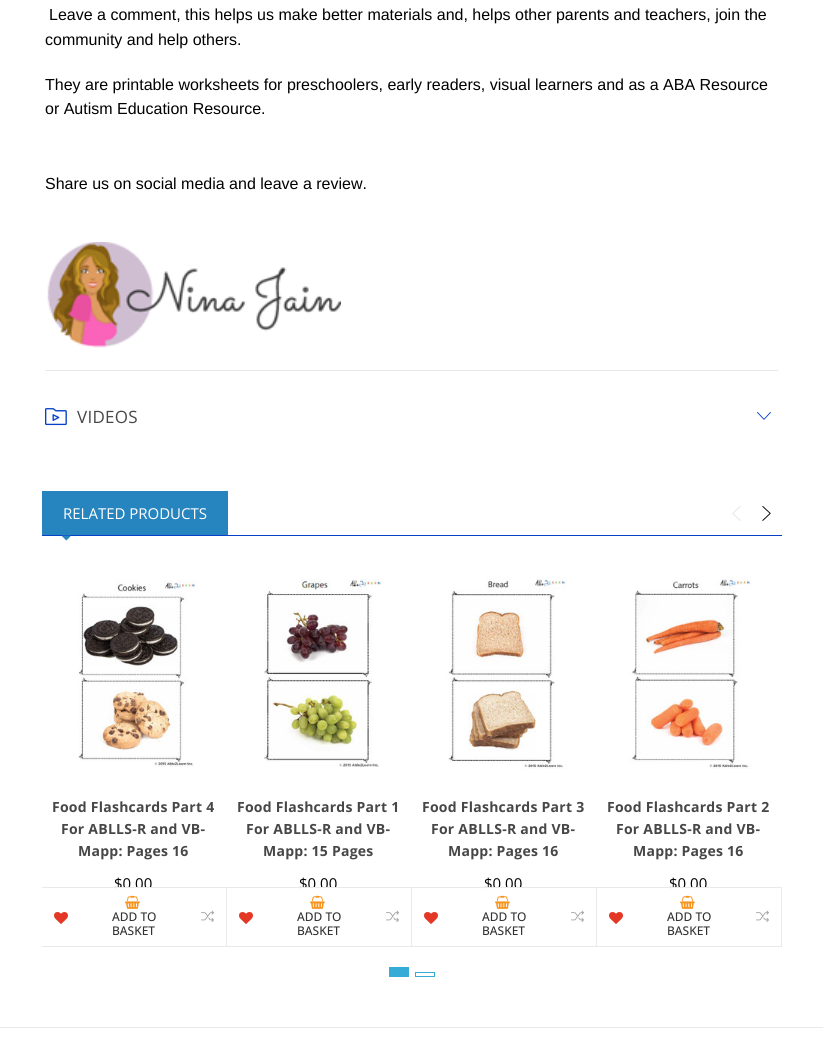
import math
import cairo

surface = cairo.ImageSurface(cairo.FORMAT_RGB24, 823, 1051)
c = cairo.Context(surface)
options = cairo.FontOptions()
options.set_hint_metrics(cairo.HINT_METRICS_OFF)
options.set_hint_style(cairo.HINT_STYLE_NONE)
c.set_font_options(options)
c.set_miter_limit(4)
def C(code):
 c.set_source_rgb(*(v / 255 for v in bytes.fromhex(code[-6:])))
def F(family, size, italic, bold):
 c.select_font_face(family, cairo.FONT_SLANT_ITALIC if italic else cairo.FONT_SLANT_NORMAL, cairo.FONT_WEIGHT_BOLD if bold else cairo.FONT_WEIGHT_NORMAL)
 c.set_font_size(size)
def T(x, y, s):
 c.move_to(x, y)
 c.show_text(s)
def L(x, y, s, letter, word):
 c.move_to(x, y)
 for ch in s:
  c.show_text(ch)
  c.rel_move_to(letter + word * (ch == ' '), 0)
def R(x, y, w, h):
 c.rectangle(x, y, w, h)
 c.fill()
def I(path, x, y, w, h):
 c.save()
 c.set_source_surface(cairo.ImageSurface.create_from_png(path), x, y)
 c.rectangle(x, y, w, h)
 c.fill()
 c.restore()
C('ffffff')
c.paint()
F('Liberation Sans',16,0,0)
C('000000')
T(49,20,'Leave a comment, this helps us make better materials and, helps other parents and teachers, join the')
T(45,45,'community and help others.')
T(45,90,'They are printable worksheets for preschoolers, early readers, visual learners and as a ABA Resource')
T(45,114,'or Autism Education Resource.')
T(45,189,'Share us on social media and leave a review.')
I('1.png',47,242,294,106)
C('e8e8e8')
R(45,370,733,1)
I('2.png',45,408,22,18)
F('Open Sans',17,0,0)
C('474747')
L(77,423,'VIDEOS',.25,0)
I('3.png',757,412,14,8)
C('0542c9')
R(42,535,740,1)
C('2685be')
R(42,491,186,44)
F('Open Sans',15,0,0)
C('ffffff')
T(63,519,'RELATED PRODUCTS')
I('4.png',62,535,9,6)
I('5.png',732,506,9,15)
I('6.png',762,506,9,15)
I('7.png',78,580,121,187)
F('Open Sans',14,0,1)
C('474747')
L(52,812,'Food Flashcards Part 4',.25,0)
L(61,834,'For ABLLS-R and VB-',.25,0)
L(78,856,'Mapp: Pages 16',.25,0)
F('Open Sans',15,0,0)
C('000000')
T(114,889,'$0.00')
c.save()
c.rectangle(42,557,740,390)
c.clip()
c.rectangle(41.5,887.5,185,59)
C('e9e9e9')
c.set_line_width(1)
c.stroke()
c.restore()
I('8.png',54,912,14,12)
C('ffffff')
R(116,888,35,2)
I('9.png',125,895,15,14)
F('Open Sans Medium',12,0,0)
C('333333')
T(112,921,'ADD TO')
T(112,935,'BASKET')
I('10.png',201,910,13,12)
I('11.png',264,579,121,188)
F('Open Sans',14,0,1)
C('474747')
L(237,812,'Food Flashcards Part 1',.25,0)
L(246,834,'For ABLLS-R and VB-',.25,0)
L(263,856,'Mapp: 15 Pages',.25,0)
F('Open Sans',15,0,0)
C('000000')
T(299,889,'$0.00')
c.rectangle(226.5,887.5,185,59)
C('e9e9e9')
c.set_line_width(1)
c.stroke()
I('8.png',239,912,14,12)
C('ffffff')
R(301,888,35,2)
I('9.png',310,895,15,14)
F('Open Sans Medium',12,0,0)
C('333333')
T(297,921,'ADD TO')
T(297,935,'BASKET')
I('10.png',386,910,13,12)
I('12.png',447,577,120,192)
F('Open Sans',14,0,1)
C('474747')
L(422,812,'Food Flashcards Part 3',.25,0)
L(431,834,'For ABLLS-R and VB-',.25,0)
L(448,856,'Mapp: Pages 16',.25,0)
F('Open Sans',15,0,0)
C('000000')
T(484,889,'$0.00')
c.rectangle(411.5,887.5,185,59)
C('e9e9e9')
c.stroke()
I('8.png',424,912,14,12)
C('ffffff')
R(486,888,35,2)
I('9.png',495,895,15,14)
F('Open Sans Medium',12,0,0)
C('333333')
T(482,921,'ADD TO')
T(482,935,'BASKET')
I('10.png',571,910,13,12)
I('13.png',629,577,123,192)
F('Open Sans',14,0,1)
C('474747')
L(607,812,'Food Flashcards Part 2',.25,0)
L(616,834,'For ABLLS-R and VB-',.25,0)
L(633,856,'Mapp: Pages 16',.25,0)
F('Open Sans',15,0,0)
C('000000')
T(669,889,'$0.00')
c.rectangle(596.5,887.5,185,59)
C('e9e9e9')
c.stroke()
I('8.png',609,912,14,12)
C('ffffff')
R(671,888,35,2)
I('9.png',680,895,15,14)
F('Open Sans Medium',12,0,0)
C('333333')
T(667,921,'ADD TO')
T(667,935,'BASKET')
I('10.png',756,910,13,12)
C('37abd7')
R(389,967,20,10)
c.rectangle(415.5,972.5,19,4)
c.stroke()
C('e9e9e9')
R(0,1027,823,1)
surface.write_to_png('o.png')
